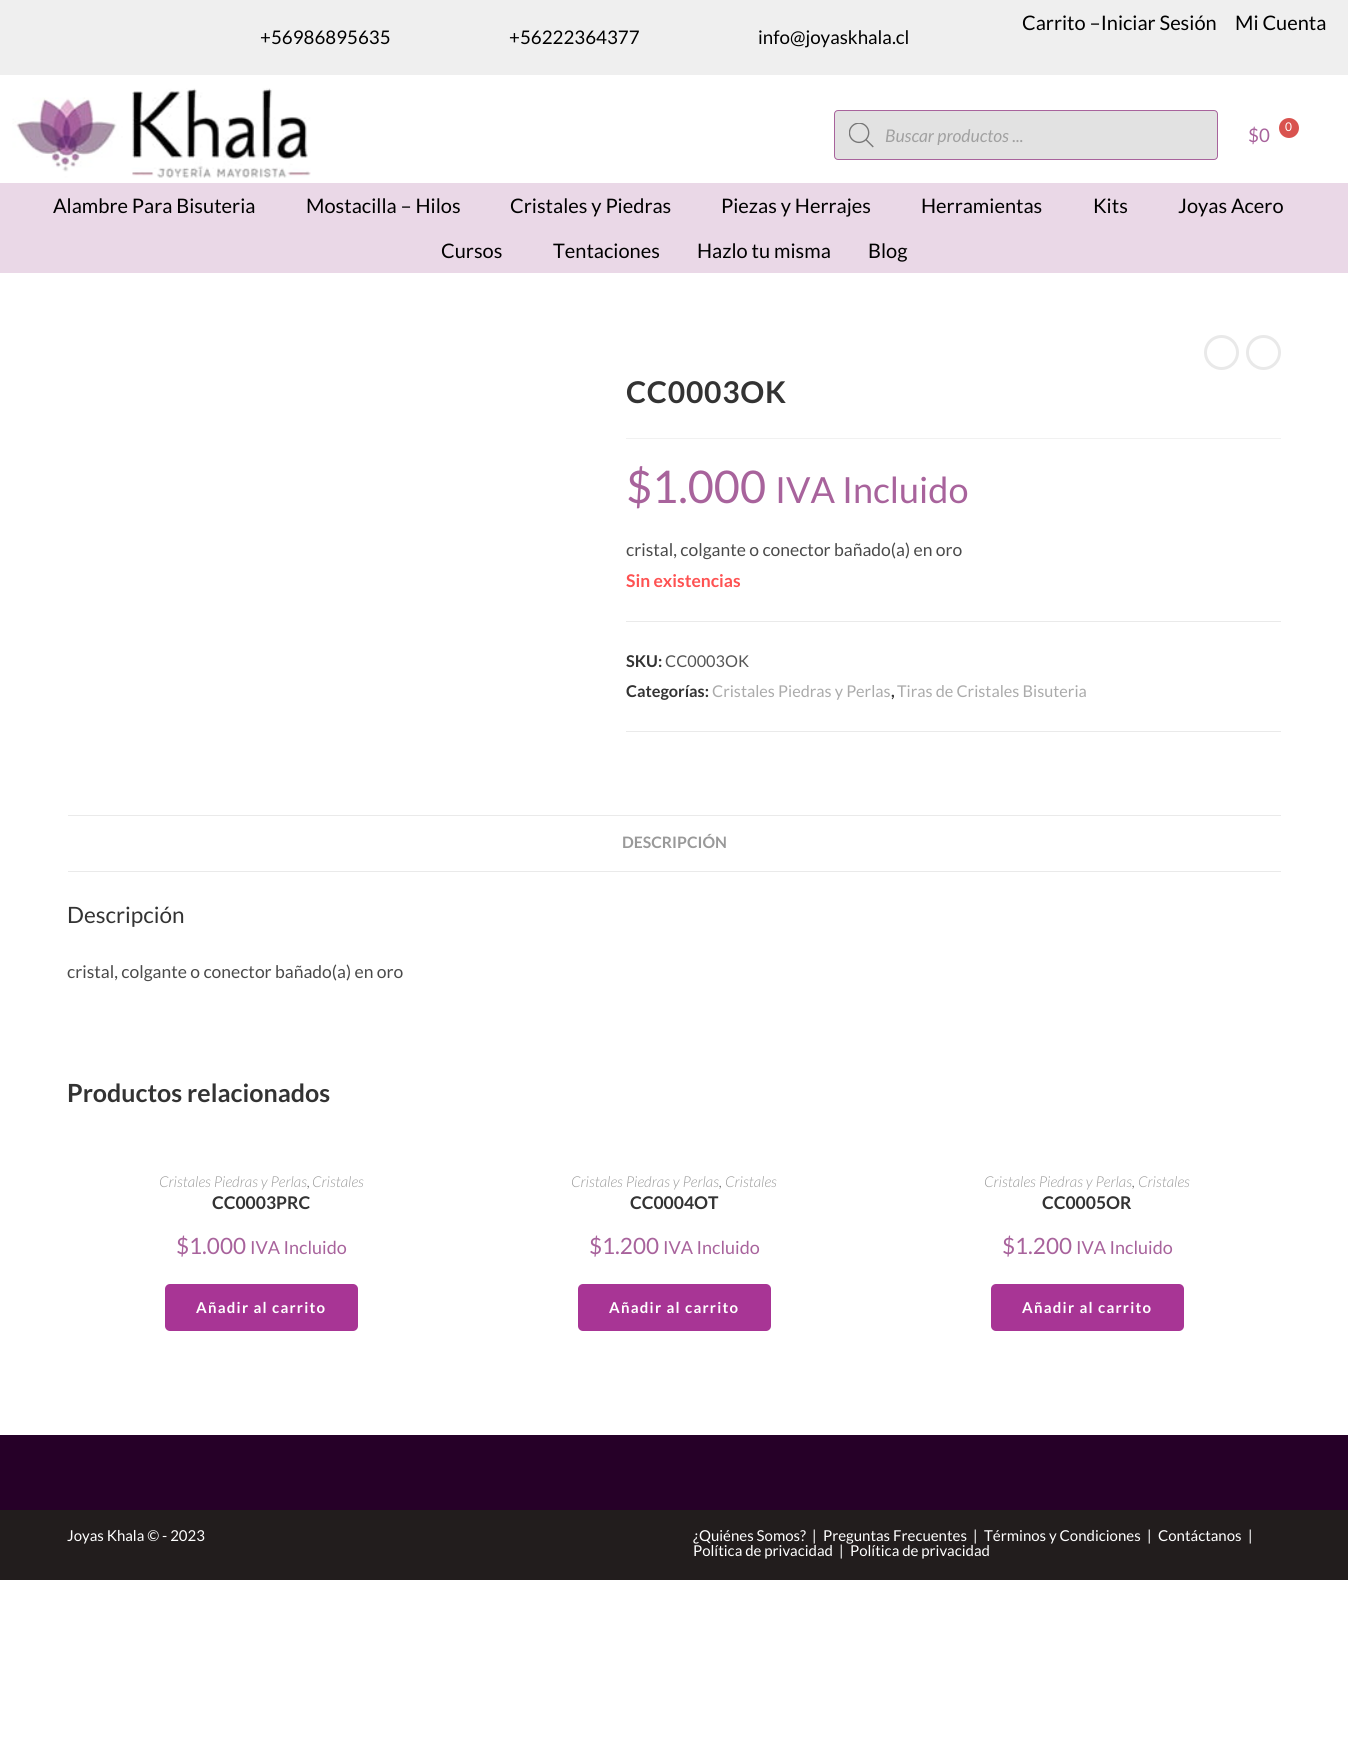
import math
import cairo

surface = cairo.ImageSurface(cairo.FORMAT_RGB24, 1348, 1749)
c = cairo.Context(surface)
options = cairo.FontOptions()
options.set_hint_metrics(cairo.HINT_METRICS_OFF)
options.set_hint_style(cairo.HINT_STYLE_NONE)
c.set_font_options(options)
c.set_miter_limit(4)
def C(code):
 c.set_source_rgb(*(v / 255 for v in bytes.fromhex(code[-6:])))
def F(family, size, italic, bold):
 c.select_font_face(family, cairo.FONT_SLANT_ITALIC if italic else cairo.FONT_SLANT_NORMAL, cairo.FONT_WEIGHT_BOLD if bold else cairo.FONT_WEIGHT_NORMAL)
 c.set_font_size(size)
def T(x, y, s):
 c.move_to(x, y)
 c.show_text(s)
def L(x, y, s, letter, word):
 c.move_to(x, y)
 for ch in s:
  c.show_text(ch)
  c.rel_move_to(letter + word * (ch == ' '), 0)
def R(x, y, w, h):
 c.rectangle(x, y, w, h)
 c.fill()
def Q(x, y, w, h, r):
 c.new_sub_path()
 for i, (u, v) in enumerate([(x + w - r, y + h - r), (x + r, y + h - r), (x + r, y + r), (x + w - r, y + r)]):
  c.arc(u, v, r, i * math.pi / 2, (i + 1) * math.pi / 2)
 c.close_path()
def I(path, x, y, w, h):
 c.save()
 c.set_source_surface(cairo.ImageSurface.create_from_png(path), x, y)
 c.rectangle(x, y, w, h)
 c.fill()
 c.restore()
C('ffffff')
c.paint()
C('efefef')
R(0,0,1348,75)
F('Lato',20,0,0)
C('000000')
T(1022,30,'Carrito –Iniciar Sesión')
T(1235,30,'Mi Cuenta')
F('Lato',18.75,0,0)
T(260,44,'+56986895635')
T(509,44,'+56222364377')
T(758,44,'info@joyaskhala.cl')
I('1.png',12,88,299,90)
C('e2e2e2')
Q(834.5,110.5,383,49,3.5)
c.fill_preserve()
C('a8639c')
c.set_line_width(1)
c.stroke()
I('2.png',849,123,25,25)
F('Lato',17.5,1,0)
C('a1a1a1')
T(885,142,'Buscar productos ...')
F('Lato',18.75,0,0)
C('a8639c')
T(1248,142,'$0')
C('d9534f')
c.new_path()
c.arc(1289,128,10,0,2 * math.pi)
c.fill()
F('Lato',12,0,0)
C('ffffff')
T(1285,131,'0')
C('ead8e7')
R(0,183,1348,90)
F('Lato',20,0,0)
C('000000')
T(53,213,'Alambre Para Bisuteria')
T(306,213,'Mostacilla – Hilos')
T(510,213,'Cristales y Piedras')
T(721,213,'Piezas y Herrajes')
T(921,213,'Herramientas')
T(1093,213,'Kits')
T(1178,213,'Joyas Acero')
T(441,258,'Cursos')
T(553,258,'Tentaciones')
T(697,258,'Hazlo tu misma')
T(868,258,'Blog')
c.new_path()
c.arc(1221.5,352.5,16,0,2 * math.pi)
C('e9e9e9')
c.set_line_width(3)
c.stroke()
c.arc(1263.5,352.5,16,0,2 * math.pi)
c.stroke()
C('f1f1f1')
R(626,438,655,1)
F('Lato',30,0,1)
C('333333')
L(626,403,'CC0003OK',.75,0)
F('Lato',45,0,0)
C('a8639c')
T(626,503,'$1.000')
F('Lato',36,0,0)
T(775,503,'IVA Incluido')
F('Lato',17.5,0,0)
C('4a4a4a')
T(626,556,'cristal, colgante o conector bañado(a) en oro')
F('Lato',17.5,0,1)
C('fe5252')
T(626,587,'Sin existencias')
C('eaeaea')
R(626,621,655,1)
R(626,731,655,1)
F('Lato',16.25,0,1)
C('333333')
T(626,667,'SKU:')
F('Lato',16.25,0,0)
C('555555')
T(665,667,'CC0003OK')
F('Lato',16.25,0,1)
C('333333')
T(626,697,'Categorías:')
F('Lato',16.25,0,0)
C('ababab')
T(712,697,'Cristales Piedras y Perlas')
F('Lato',16.25,0,1)
C('333333')
T(891,697,',')
F('Lato',16.25,0,0)
C('ababab')
T(897,697,'Tiras de Cristales Bisuteria')
C('eaeaea')
R(68,815,1213,1)
R(68,871,1213,1)
F('Lato',15.75,0,1)
C('999999')
T(622,848,'DESCRIPCIÓN')
F('Lato',22.5,0,0)
C('333333')
T(67,923,'Descripción')
F('Lato',17.5,0,0)
C('4a4a4a')
T(67,978,'cristal, colgante o conector bañado(a) en oro')
F('Lato',25,0,1)
C('333333')
T(67,1102,'Productos relacionados')
F('Lato Light',15,1,0)
C('999999')
T(159,1187,'Cristales Piedras y Perlas')
C('4a4a4a')
T(307,1187,',')
C('999999')
T(312,1187,'Cristales')
F('Lato',17.5,0,1)
C('333333')
T(212,1209,'CC0003PRC')
F('Lato',22.5,0,0)
C('a8639c')
T(176,1254,'$1.000')
F('Lato',18,0,0)
T(250,1254,'IVA Incluido')
C('a83595')
Q(165,1284,193,47,5)
c.fill()
F('Lato',15,0,1)
C('ffffff')
L(196,1313,'Añadir al carrito',1.25,0)
F('Lato Light',15,1,0)
C('999999')
T(571,1187,'Cristales Piedras y Perlas')
C('4a4a4a')
T(719,1187,',')
C('999999')
T(725,1187,'Cristales')
F('Lato',17.5,0,1)
C('333333')
T(630,1209,'CC0004OT')
F('Lato',22.5,0,0)
C('a8639c')
T(589,1254,'$1.200')
F('Lato',18,0,0)
T(663,1254,'IVA Incluido')
C('a83595')
Q(578,1284,193,47,5)
c.fill()
F('Lato',15,0,1)
C('ffffff')
L(609,1313,'Añadir al carrito',1.25,0)
F('Lato Light',15,1,0)
C('999999')
T(984,1187,'Cristales Piedras y Perlas')
C('4a4a4a')
T(1132,1187,',')
C('999999')
T(1138,1187,'Cristales')
F('Lato',17.5,0,1)
C('333333')
T(1042,1209,'CC0005OR')
F('Lato',22.5,0,0)
C('a8639c')
T(1002,1254,'$1.200')
F('Lato',18,0,0)
T(1076,1254,'IVA Incluido')
C('a83595')
Q(991,1284,193,47,5)
c.fill()
F('Lato',15,0,1)
C('ffffff')
L(1022,1313,'Añadir al carrito',1.25,0)
C('260028')
R(0,1435,1348,75)
C('221d1d')
R(0,1510,1348,70)
F('Lato',15,0,0)
C('ffffff')
T(67,1541,'Joyas Khala © - 2023')
T(693,1541,'¿Quiénes Somos?')
T(812,1541,'|')
T(823,1541,'Preguntas Frecuentes')
T(973,1541,'|')
T(984,1541,'Términos y Condiciones')
T(1147,1541,'|')
T(1158,1541,'Contáctanos')
T(1248,1541,'|')
T(693,1556,'Política de privacidad')
T(839,1556,'|')
T(850,1556,'Política de privacidad')
surface.write_to_png('o.png')
